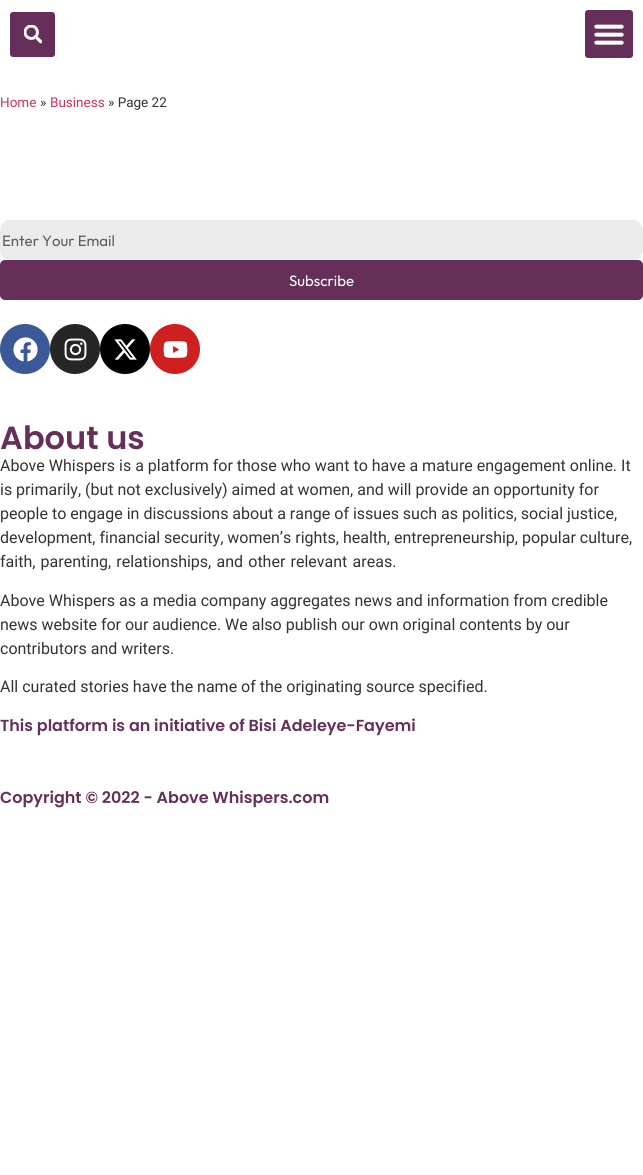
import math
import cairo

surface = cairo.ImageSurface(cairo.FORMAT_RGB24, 643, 1175)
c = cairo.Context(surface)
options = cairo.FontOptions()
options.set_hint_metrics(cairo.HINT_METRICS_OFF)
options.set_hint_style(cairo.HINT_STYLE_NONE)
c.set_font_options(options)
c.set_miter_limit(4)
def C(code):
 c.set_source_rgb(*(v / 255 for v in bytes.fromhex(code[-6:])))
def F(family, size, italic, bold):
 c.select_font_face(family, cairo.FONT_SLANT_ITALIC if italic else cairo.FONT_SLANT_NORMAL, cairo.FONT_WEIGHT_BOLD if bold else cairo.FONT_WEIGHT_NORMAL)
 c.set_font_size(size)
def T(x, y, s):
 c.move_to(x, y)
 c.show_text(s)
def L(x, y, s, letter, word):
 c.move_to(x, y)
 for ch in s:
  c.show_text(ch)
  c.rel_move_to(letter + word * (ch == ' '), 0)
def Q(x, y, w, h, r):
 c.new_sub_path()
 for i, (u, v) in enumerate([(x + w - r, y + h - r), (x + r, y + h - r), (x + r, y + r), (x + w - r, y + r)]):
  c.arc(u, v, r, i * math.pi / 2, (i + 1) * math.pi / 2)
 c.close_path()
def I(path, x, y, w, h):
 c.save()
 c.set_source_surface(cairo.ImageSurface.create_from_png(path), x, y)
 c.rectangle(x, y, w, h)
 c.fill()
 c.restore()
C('ffffff')
c.paint()
C('662f59')
Q(10,12,45,45,3)
c.fill()
I('1.png',24,25,18,19)
Q(585,10,48,48,3)
c.fill()
I('2.png',594,24,30,21)
F('Roboto',13.5,0,0)
C('cc3366')
T(0,107,'Home')
C('333333')
T(40,107,'»')
C('cc3366')
T(50,107,'Business')
C('333333')
T(108,107,'» Page 22')
C('ebebeb')
Q(0,220,643,40,10)
c.fill()
F('Outfit',15,0,0)
C('5e5e5e')
T(2,246,'Enter Your Email')
C('662f59')
Q(0,260,643,40,5)
c.fill()
C('ffffff')
T(289,286,'Subscribe')
C('3b5998')
c.new_path()
c.arc(25,349,25,0,2 * math.pi)
c.fill()
I('3.png',13,337,25,25)
C('262626')
c.arc(75,349,25,0,2 * math.pi)
c.fill()
I('4.png',64,338,23,23)
C('000000')
c.arc(125,349,25,0,2 * math.pi)
c.fill()
I('5.png',114,339,23,21)
C('cd201f')
c.arc(175,349,25,0,2 * math.pi)
c.fill()
I('6.png',163,341,25,17)
F('Poppins SemiBold',32,0,0)
C('662f59')
T(0,449,'About us')
F('Roboto',16,0,0)
C('333333')
T(0,471,'Above Whispers is a platform for those who want to have a mature engagement online. It')
T(0,495,'is primarily, (but not exclusively) aimed at women, and will provide an opportunity for')
T(0,519,'people to engage in discussions about a range of issues such as politics, social justice,')
T(0,543,'development, financial security, women’s rights, health, entrepreneurship, popular culture,')
L(0,567,'faith, parenting, relationships, and other relevant areas.',0,1.25)
T(0,606,'Above Whispers as a media company aggregates news and information from credible')
T(0,630,'news website for our audience. We also publish our own original contents by our')
T(0,654,'contributors and writers.')
T(0,692,'All curated stories have the name of the originating source specified.')
F('Poppins SemiBold',16,0,0)
C('662f59')
T(0,731,'This platform is an initiative of Bisi Adeleye-Fayemi')
T(0,803,'Copyright © 2022 - Above Whispers.com')
surface.write_to_png('o.png')
